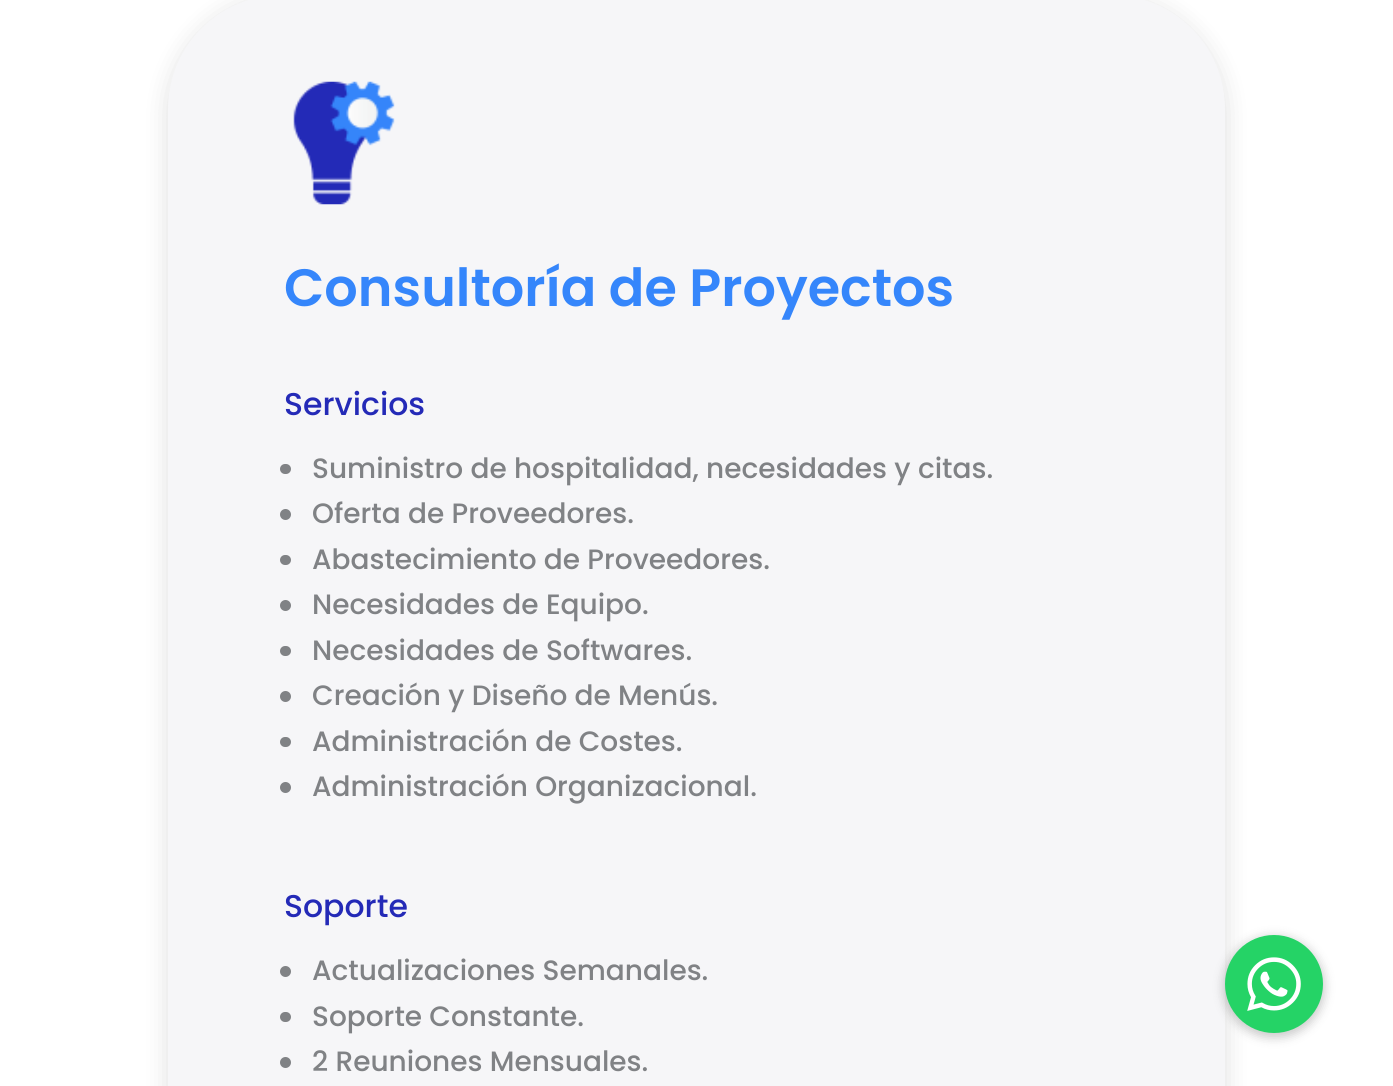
import math
import cairo

surface = cairo.ImageSurface(cairo.FORMAT_RGB24, 1393, 1086)
c = cairo.Context(surface)
options = cairo.FontOptions()
options.set_hint_metrics(cairo.HINT_METRICS_OFF)
options.set_hint_style(cairo.HINT_STYLE_NONE)
c.set_font_options(options)
c.set_miter_limit(4)
def C(code):
 c.set_source_rgb(*(v / 255 for v in bytes.fromhex(code[-6:])))
def F(family, size, italic, bold):
 c.select_font_face(family, cairo.FONT_SLANT_ITALIC if italic else cairo.FONT_SLANT_NORMAL, cairo.FONT_WEIGHT_BOLD if bold else cairo.FONT_WEIGHT_NORMAL)
 c.set_font_size(size)
def T(x, y, s):
 c.move_to(x, y)
 c.show_text(s)
def Q(x, y, w, h, r):
 c.new_sub_path()
 for i, (u, v) in enumerate([(x + w - r, y + h - r), (x + r, y + h - r), (x + r, y + r), (x + w - r, y + r)]):
  c.arc(u, v, r, i * math.pi / 2, (i + 1) * math.pi / 2)
 c.close_path()
def S(x, y, w, h, r, blur, alpha):
 c.push_group_with_content(cairo.CONTENT_ALPHA)
 c.set_operator(cairo.OPERATOR_SOURCE)
 for i in range(15, -16, -2):
  e = blur * i / 6
  if min(w, h) + 2 * e > 0:
   c.set_source_rgba(0, 0, 0, alpha * math.erfc((i - 1) / 8.5) / 2)
   Q(x - e, y - e, w + 2 * e, h + 2 * e, max(0, min(r + e + blur * .6, min(w, h) / 2 + e)))
   c.fill()
 c.mask(c.pop_group())
def I(path, x, y, w, h):
 c.save()
 c.set_source_surface(cairo.ImageSurface.create_from_png(path), x, y)
 c.rectangle(x, y, w, h)
 c.fill()
 c.restore()
C('ffffff')
c.paint()
C('000000')
S(168,-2,1057,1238,114,12,.13)
C('f6f6f8')
Q(168,-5,1057,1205,114)
c.fill()
I('1.png',293,81,102,124)
F('Poppins SemiBold',52.5,0,0)
C('3586fb')
T(284,306,'Consultoría de Proyectos')
F('Poppins Medium',31.5,0,0)
C('242ab7')
T(284,415,'Servicios')
C('808285')
Q(280,464,11,10,5)
c.fill()
F('Poppins Medium',28,0,0)
T(312,478,'Suministro de hospitalidad, necesidades y citas.')
c.new_path()
c.arc(285.5,514.5,5.5,0,2 * math.pi)
c.fill()
T(312,523,'Oferta de Proveedores.')
Q(280,555,11,10,5)
c.fill()
T(312,569,'Abastecimiento de Proveedores.')
c.new_path()
c.arc(285.5,605.5,5.5,0,2 * math.pi)
c.fill()
T(312,614,'Necesidades de Equipo.')
Q(280,646,11,10,5)
c.fill()
T(312,660,'Necesidades de Softwares.')
c.new_path()
c.arc(285.5,696.5,5.5,0,2 * math.pi)
c.fill()
T(312,705,'Creación y Diseño de Menús.')
Q(280,737,11,10,5)
c.fill()
T(312,751,'Administración de Costes.')
c.new_path()
c.arc(285.5,787.5,5.5,0,2 * math.pi)
c.fill()
T(312,796,'Administración Organizacional.')
F('Poppins Medium',31.5,0,0)
C('242ab7')
T(284,917,'Soporte')
C('808285')
c.new_path()
c.arc(285.5,971.5,5.5,0,2 * math.pi)
c.fill()
F('Poppins Medium',28,0,0)
T(312,980,'Actualizaciones Semanales.')
Q(280,1012,11,10,5)
c.fill()
T(312,1026,'Soporte Constante.')
c.new_path()
c.arc(285.5,1062.5,5.5,0,2 * math.pi)
c.fill()
T(312,1071,'2 Reuniones Mensuales.')
C('000000')
S(1223,936,102,102,51,5,.2)
C('25d366')
c.arc(1274,984,49,0,2 * math.pi)
c.fill()
I('2.png',1247,957,54,54)
surface.write_to_png('o.png')
